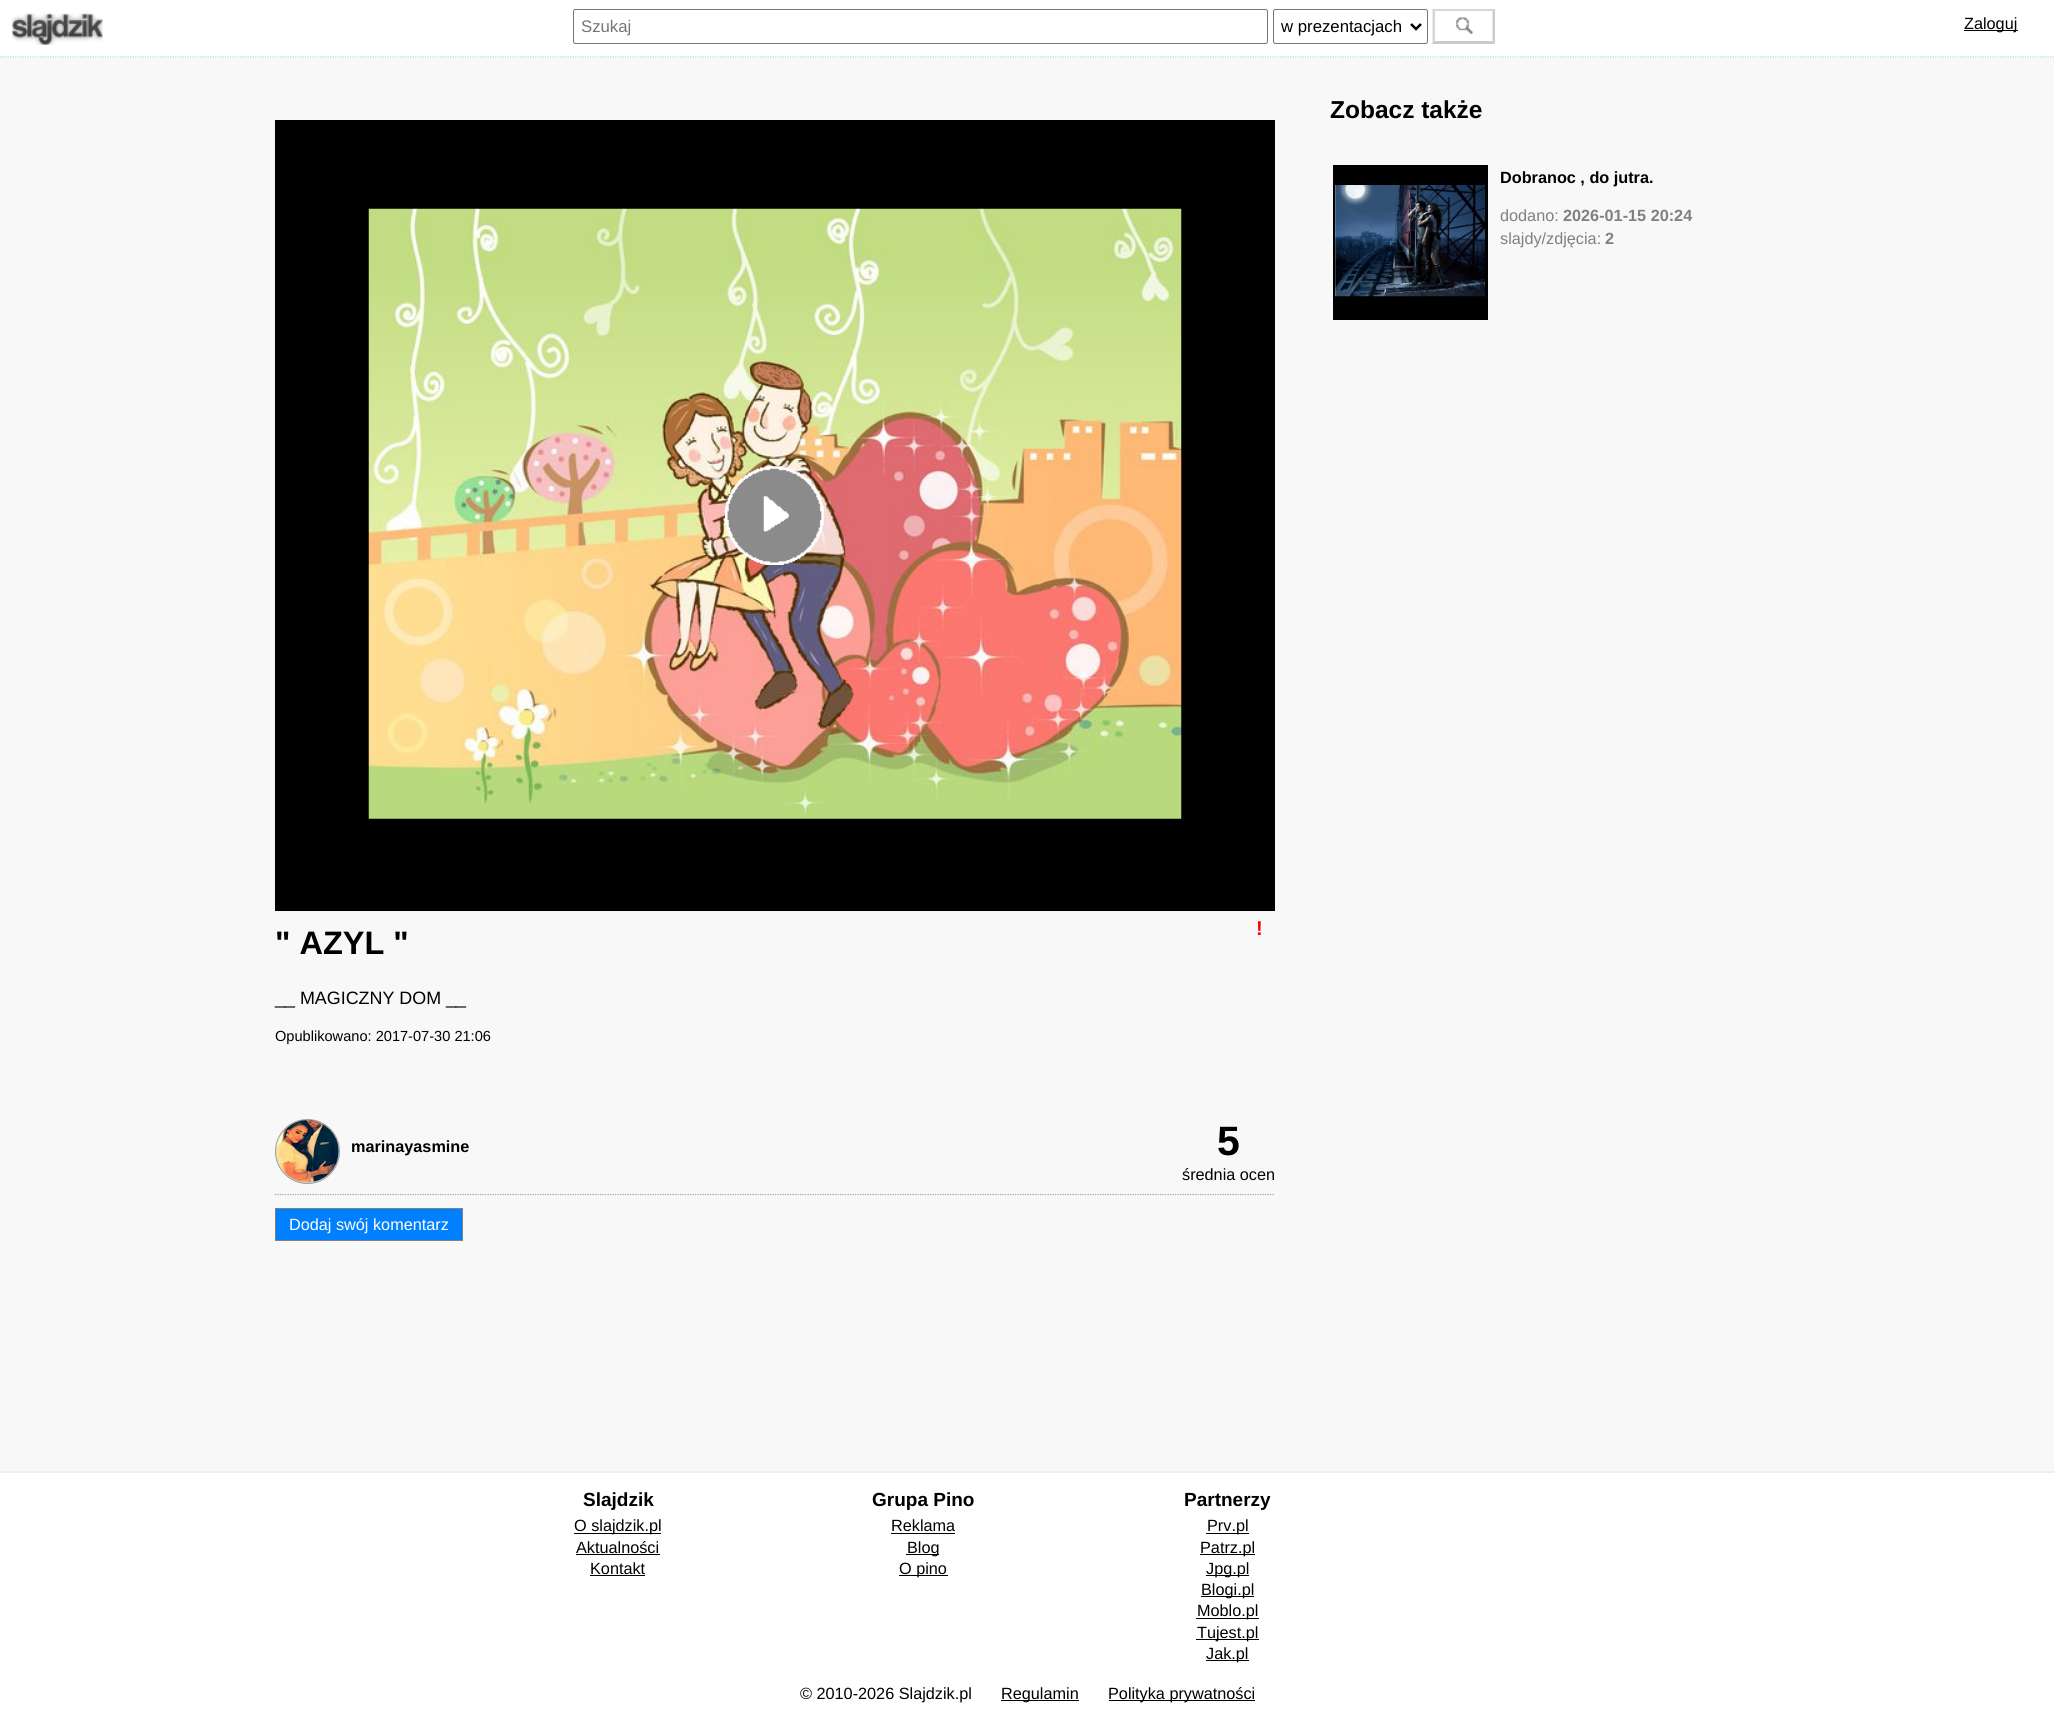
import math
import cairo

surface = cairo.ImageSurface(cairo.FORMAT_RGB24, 2054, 1721)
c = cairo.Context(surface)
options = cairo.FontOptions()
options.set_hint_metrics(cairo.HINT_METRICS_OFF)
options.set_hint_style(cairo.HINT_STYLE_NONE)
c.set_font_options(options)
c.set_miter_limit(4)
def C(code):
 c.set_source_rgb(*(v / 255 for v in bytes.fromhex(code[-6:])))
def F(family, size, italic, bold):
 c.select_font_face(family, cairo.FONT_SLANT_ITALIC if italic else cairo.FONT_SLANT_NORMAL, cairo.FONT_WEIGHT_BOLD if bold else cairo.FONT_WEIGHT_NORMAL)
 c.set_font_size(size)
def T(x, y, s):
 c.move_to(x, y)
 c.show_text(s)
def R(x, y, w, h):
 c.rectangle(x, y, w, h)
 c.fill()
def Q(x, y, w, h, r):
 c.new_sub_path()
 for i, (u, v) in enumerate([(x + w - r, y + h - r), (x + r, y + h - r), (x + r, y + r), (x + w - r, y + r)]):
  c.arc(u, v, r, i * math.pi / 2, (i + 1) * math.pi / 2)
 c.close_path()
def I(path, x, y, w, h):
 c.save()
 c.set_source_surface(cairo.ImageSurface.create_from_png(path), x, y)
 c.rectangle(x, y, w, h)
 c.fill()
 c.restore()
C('f8f8f8')
c.paint()
C('ffffff')
R(0,0,2054,58)
c.new_path()
c.move_to(0,57)
c.line_to(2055,57)
C('a0d8ec')
c.set_line_width(1.2)
c.set_dash([1.25,1.25])
c.stroke()
I('1.png',12,13,91,32)
Q(573.5,9.5,694,34,2)
C('767676')
c.set_line_width(1)
c.set_dash([])
c.stroke()
F('Liberation Sans',16.75,0,0)
C('757575')
T(581,32,'Szukaj')
Q(1273.5,9.5,154,34,2)
C('767676')
c.stroke()
c.new_path()
c.move_to(1411,24)
c.line_to(1416,29)
c.line_to(1421,24)
C('000000')
c.set_line_width(2.5)
c.stroke()
T(1281,32,'w prezentacjach')
I('2.png',1456,17,17,17)
C('d6d6d6')
c.new_path()
c.move_to(1432,9)
c.line_to(1495,9)
c.line_to(1492,11)
c.line_to(1435,11)
c.close_path()
c.fill()
c.set_source_rgba(0.31,0.31,0.31,0.3)
c.new_path()
c.move_to(1495,9)
c.line_to(1495,44)
c.line_to(1492.5,41)
c.line_to(1492.5,11)
c.close_path()
c.fill()
c.new_path()
c.move_to(1495,44)
c.line_to(1432,44)
c.line_to(1435,41)
c.line_to(1492,41)
c.close_path()
c.fill()
c.set_source_rgba(0.463,0.463,0.463,0.3)
c.new_path()
c.move_to(1432.5,44)
c.line_to(1432.5,9)
c.line_to(1435,11)
c.line_to(1435,41)
c.close_path()
c.fill()
C('000000')
R(1964,30,54,1)
F('Liberation Sans',16.25,0,0)
T(1964,29,'Zaloguj')
F('Liberation Sans',24.5,0,1)
T(1330,118,'Zobacz także')
R(1333,165,155,155)
I('3.png',1335,185,150,112)
F('Liberation Sans',16.25,0,1)
T(1500,183,'Dobranoc , do jutra.')
F('Liberation Sans',16.25,0,0)
C('808080')
T(1500,221,'dodano:')
F('Liberation Sans',16.25,0,1)
T(1563,221,'2026-01-15 20:24')
F('Liberation Sans',16.25,0,0)
T(1500,244,'slajdy/zdjęcia:')
F('Liberation Sans',16.25,0,1)
T(1605,244,'2')
C('000000')
R(275,120,1000,791)
I('4.png',368,208,814,611)
I('5.png',725,466,99,99)
F('Liberation Sans',20,0,1)
C('ff0000')
T(1256,935,'!')
F('Liberation Sans',32.5,0,1)
C('000000')
T(275,954,'" AZYL "')
F('Liberation Sans',17.9,0,0)
T(275,1004,'__ MAGICZNY DOM __')
F('Liberation Sans',14.6,0,0)
T(275,1041,'Opublikowano: 2017-07-30 21:06')
C('d0d0d0')
c.new_path()
c.arc(307.5,1151.5,32,0,2 * math.pi)
c.fill_preserve()
C('a0a0a0')
c.set_line_width(1)
c.stroke()
I('6.png',276,1120,63,63)
F('Liberation Sans',16.25,0,1)
C('000000')
T(351,1152,'marinayasmine')
F('Liberation Sans',41,0,1)
T(1217,1155,'5')
F('Liberation Sans',16.25,0,0)
T(1182,1180,'średnia ocen')
c.new_path()
c.move_to(275,1194.5)
c.line_to(1275,1194.5)
C('a0a0a0')
c.set_line_width(1.2)
c.set_dash([1.25,1.25])
c.stroke()
C('0080ff')
c.rectangle(275.5,1208.5,187,32)
c.fill_preserve()
C('808080')
c.set_line_width(1)
c.set_dash([])
c.stroke()
C('ffffff')
T(289,1230,'Dodaj swój komentarz')
R(0,1471,2054,250)
c.new_path()
c.move_to(0,1472)
c.line_to(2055,1472)
C('a0d8ec')
c.set_line_width(1.2)
c.set_dash([1.25,1.25])
c.stroke()
F('Liberation Sans',19,0,1)
C('000000')
T(583,1506,'Slajdzik')
R(574,1533,87,1)
F('Liberation Sans',16.25,0,0)
T(574,1531,'O slajdzik.pl')
T(576,1553,'Aktualności')
R(576,1554,84,1)
T(590,1574,'Kontakt')
R(590,1575,55,1)
F('Liberation Sans',19,0,1)
T(872,1506,'Grupa Pino')
F('Liberation Sans',16.25,0,0)
T(891,1531,'Reklama')
R(891,1533,64,1)
R(906,1554,33,1)
T(907,1553,'Blog')
R(899,1575,49,1)
T(899,1574,'O pino')
F('Liberation Sans',19,0,1)
T(1184,1506,'Partnerzy')
R(1206,1533,43,1)
F('Liberation Sans',16.25,0,0)
T(1207,1531,'Prv.pl')
R(1200,1554,55,1)
T(1200,1553,'Patrz.pl')
R(1206,1575,43,1)
T(1206,1574,'Jpg.pl')
R(1201,1596,53,1)
T(1201,1595,'Blogi.pl')
R(1196,1618,63,1)
T(1197,1616,'Moblo.pl')
R(1196,1639,63,1)
T(1197,1638,'Tujest.pl')
R(1206,1660,43,1)
T(1206,1659,'Jak.pl')
T(800,1699,'© 2010-2026 Slajdzik.pl')
R(1001,1700,78,1)
T(1001,1699,'Regulamin')
R(1109,1700,146,1)
T(1108,1699,'Polityka prywatności')
surface.write_to_png('o.png')
